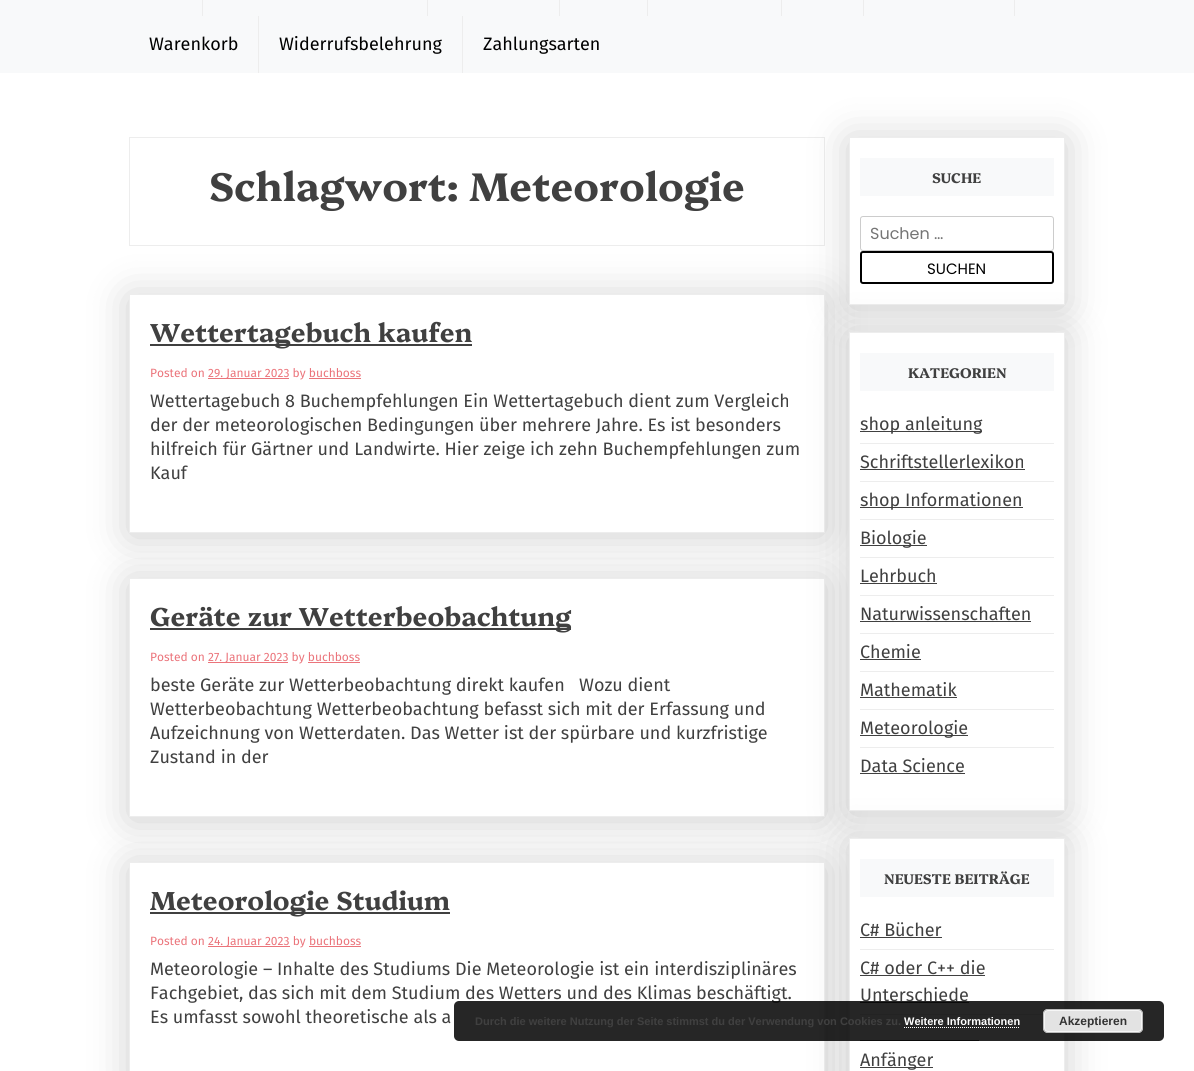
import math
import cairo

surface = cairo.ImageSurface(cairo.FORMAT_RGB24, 1194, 1071)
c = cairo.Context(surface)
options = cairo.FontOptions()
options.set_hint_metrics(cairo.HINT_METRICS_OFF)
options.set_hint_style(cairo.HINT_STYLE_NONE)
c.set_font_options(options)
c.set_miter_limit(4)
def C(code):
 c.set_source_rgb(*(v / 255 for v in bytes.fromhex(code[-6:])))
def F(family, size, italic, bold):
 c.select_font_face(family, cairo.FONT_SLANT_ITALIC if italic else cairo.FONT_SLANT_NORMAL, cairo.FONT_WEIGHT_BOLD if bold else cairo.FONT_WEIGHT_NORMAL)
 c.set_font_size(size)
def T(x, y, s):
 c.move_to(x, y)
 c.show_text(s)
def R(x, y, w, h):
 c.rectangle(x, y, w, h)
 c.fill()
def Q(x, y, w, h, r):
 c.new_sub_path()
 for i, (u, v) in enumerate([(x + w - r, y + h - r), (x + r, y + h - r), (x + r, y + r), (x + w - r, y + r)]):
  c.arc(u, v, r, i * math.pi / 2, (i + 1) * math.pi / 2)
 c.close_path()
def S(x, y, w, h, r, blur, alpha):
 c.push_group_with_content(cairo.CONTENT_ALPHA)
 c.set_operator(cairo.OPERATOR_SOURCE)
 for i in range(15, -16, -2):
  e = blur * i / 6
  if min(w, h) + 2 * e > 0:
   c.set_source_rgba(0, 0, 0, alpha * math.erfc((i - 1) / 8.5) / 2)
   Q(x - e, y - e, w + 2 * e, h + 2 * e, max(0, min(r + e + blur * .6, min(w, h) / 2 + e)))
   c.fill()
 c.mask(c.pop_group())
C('ffffff')
c.paint()
C('f8f9fa')
R(0,0,1194,73)
C('ededed')
R(202,0,1,16)
R(427,0,1,16)
R(559,0,1,16)
R(647,0,1,16)
R(781,0,1,16)
R(863,0,1,16)
R(1014,0,1,16)
R(258,16,1,57)
F('Fira Sans',18,0,0)
C('000000')
T(149,50,'Warenkorb')
C('ededed')
R(462,16,1,57)
C('000000')
T(279,50,'Widerrufsbelehrung')
T(483,50,'Zahlungsarten')
c.rectangle(129.5,137.5,695,108)
C('ededed')
c.set_line_width(1)
c.stroke()
F('Platypi',39.9,0,1)
C('404040')
T(209,201,'Schlagwort: Meteorologie')
c.save()
c.set_fill_rule(cairo.FILL_RULE_EVEN_ODD)
c.new_path()
c.move_to(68,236)
c.line_to(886,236)
c.line_to(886,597)
c.line_to(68,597)
c.close_path()
c.move_to(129,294)
c.line_to(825,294)
c.line_to(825,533)
c.line_to(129,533)
c.close_path()
c.clip()
C('000000')
S(129,297,696,239,0,20,.2)
c.restore()
c.rectangle(129.5,294.5,695,238)
C('ededed')
c.stroke()
C('404040')
R(150,344,322,2)
F('Platypi',26,0,1)
T(150,342,'Wettertagebuch kaufen')
F('Fira Sans',12,0,0)
C('eb747b')
T(150,377,'Posted on')
R(208,378,81,1)
T(208,377,'29. Januar 2023 by buchboss')
R(309,378,52,1)
F('Fira Sans',18,0,0)
C('404040')
T(150,407,'Wettertagebuch 8 Buchempfehlungen Ein Wettertagebuch dient zum Vergleich')
T(150,431,'der der meteorologischen Bedingungen über mehrere Jahre. Es ist besonders')
T(150,455,'hilfreich für Gärtner und Landwirte. Hier zeige ich zehn Buchempfehlungen zum')
T(150,479,'Kauf')
c.save()
c.set_fill_rule(cairo.FILL_RULE_EVEN_ODD)
c.new_path()
c.move_to(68,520)
c.line_to(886,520)
c.line_to(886,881)
c.line_to(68,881)
c.close_path()
c.move_to(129,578)
c.line_to(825,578)
c.line_to(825,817)
c.line_to(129,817)
c.close_path()
c.clip()
C('000000')
S(129,581,696,239,0,20,.2)
c.restore()
c.rectangle(129.5,578.5,695,238)
C('ededed')
c.stroke()
C('404040')
R(150,628,421,2)
F('Platypi',26,0,1)
T(150,626,'Geräte zur Wetterbeobachtung')
F('Fira Sans',12,0,0)
C('eb747b')
T(150,661,'Posted on')
R(208,662,80,1)
T(208,661,'27. Januar 2023 by buchboss')
R(308,662,52,1)
F('Fira Sans',18,0,0)
C('404040')
T(150,691,'beste Geräte zur Wetterbeobachtung direkt kaufen   Wozu dient')
T(150,715,'Wetterbeobachtung Wetterbeobachtung befasst sich mit der Erfassung und')
T(150,739,'Aufzeichnung von Wetterdaten. Das Wetter ist der spürbare und kurzfristige')
T(150,763,'Zustand in der')
c.save()
c.set_fill_rule(cairo.FILL_RULE_EVEN_ODD)
c.new_path()
c.move_to(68,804)
c.line_to(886,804)
c.line_to(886,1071)
c.line_to(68,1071)
c.close_path()
c.move_to(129,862)
c.line_to(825,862)
c.line_to(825,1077)
c.line_to(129,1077)
c.close_path()
c.clip()
C('000000')
S(129,865,696,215,0,20,.2)
c.restore()
c.rectangle(129.5,862.5,695,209)
C('ededed')
c.stroke()
C('404040')
R(150,912,300,2)
F('Platypi',26,0,1)
T(150,910,'Meteorologie Studium')
F('Fira Sans',12,0,0)
C('eb747b')
T(150,945,'Posted on')
R(208,946,82,1)
T(208,945,'24. Januar 2023 by buchboss')
R(309,946,52,1)
F('Fira Sans',18,0,0)
C('404040')
T(150,975,'Meteorologie – Inhalte des Studiums Die Meteorologie ist ein interdisziplinäres')
T(150,999,'Fachgebiet, das sich mit dem Studium des Wetters und des Klimas beschäftigt.')
T(150,1023,'Es umfasst sowohl theoretische als a')
C('000000')
S(849,140,216,168,0,20,.2)
C('ffffff')
c.rectangle(849.5,137.5,215,167)
c.fill_preserve()
C('ededed')
c.stroke()
C('f8f9fa')
R(860,158,194,38)
F('Platypi',14,0,1)
C('404040')
T(932,183,'SUCHE')
Q(860.5,216.5,193,34,2.5)
C('cccccc')
c.stroke()
F('Poppins',16,0,0)
C('757575')
T(870,239,'Suchen …')
C('000000')
S(849,335,216,479,0,20,.2)
Q(861,252,192,31,2)
C('000000')
c.set_line_width(2)
c.stroke()
F('Poppins',15,0,0)
T(927,274,'SUCHEN')
C('ffffff')
c.rectangle(849.5,332.5,215,478)
c.fill_preserve()
C('ededed')
c.set_line_width(1)
c.stroke()
C('f8f9fa')
R(860,353,194,38)
F('Platypi',14,0,1)
C('404040')
T(908,378,'KATEGORIEN')
C('ededed')
R(860,443,194,1)
C('404040')
R(860,431,122,1)
F('Fira Sans',18,0,0)
T(860,430,'shop anleitung')
C('ededed')
R(860,481,194,1)
C('404040')
T(860,468,'Schriftstellerlexikon')
R(860,469,165,1)
C('ededed')
R(860,519,194,1)
C('404040')
R(860,507,163,1)
T(860,506,'shop Informationen')
C('ededed')
R(860,557,194,1)
C('404040')
R(860,545,67,1)
T(860,544,'Biologie')
C('ededed')
R(860,595,194,1)
C('404040')
T(860,582,'Lehrbuch')
R(860,583,77,1)
C('ededed')
R(860,633,194,1)
C('404040')
T(860,620,'Naturwissenschaften')
R(860,621,171,1)
C('ededed')
R(860,671,194,1)
C('404040')
T(860,658,'Chemie')
R(860,659,61,1)
C('ededed')
R(860,709,194,1)
C('404040')
T(860,696,'Mathematik')
R(860,697,97,1)
C('ededed')
R(860,747,194,1)
C('404040')
R(860,735,108,1)
T(860,734,'Meteorologie')
T(860,772,'Data Science')
R(860,773,105,1)
C('000000')
S(849,841,216,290,0,20,.2)
C('ffffff')
c.rectangle(849.5,838.5,215,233)
c.fill_preserve()
C('ededed')
c.stroke()
C('f8f9fa')
R(860,859,194,38)
F('Platypi',14,0,1)
C('404040')
T(884,884,'NEUESTE BEITRÄGE')
C('ededed')
R(860,949,194,1)
F('Fira Sans',18,0,0)
C('404040')
T(860,936,'C# Bücher')
R(860,937,82,1)
C('ededed')
R(860,1014,183,1)
C('404040')
T(860,974,'C# oder C++ die')
R(860,975,125,1)
T(860,1001,'Unterschiede')
R(860,1002,109,1)
R(860,1067,73,1)
T(860,1066,'Anfänger')
R(860,1040,119,1)
c.set_source_rgba(0,0,0,0.85)
Q(454,1001,710,40,5)
c.fill()
F('Liberation Sans',11,0,1)
C('404040')
T(475,1025,'Durch die weitere Nutzung der Seite stimmst du der Verwendung von Cookies zu.')
C('ffffff')
T(904,1025,'Weitere Informationen')
c.new_path()
c.move_to(904,1027.5)
c.line_to(1020,1027.5)
c.set_dash([1,1])
c.stroke()
C('e3e3e3')
Q(1043,1009,100,24,5)
c.fill()
Q(1044.5,1010.5,97,21,3.5)
C('f6f6f6')
c.set_dash([])
c.stroke()
Q(1043.5,1009.5,99,23,4.5)
C('bbbbbb')
c.stroke()
F('Liberation Sans',12,0,1)
C('333333')
T(1059,1025,'Akzeptieren')
surface.write_to_png('o.png')
